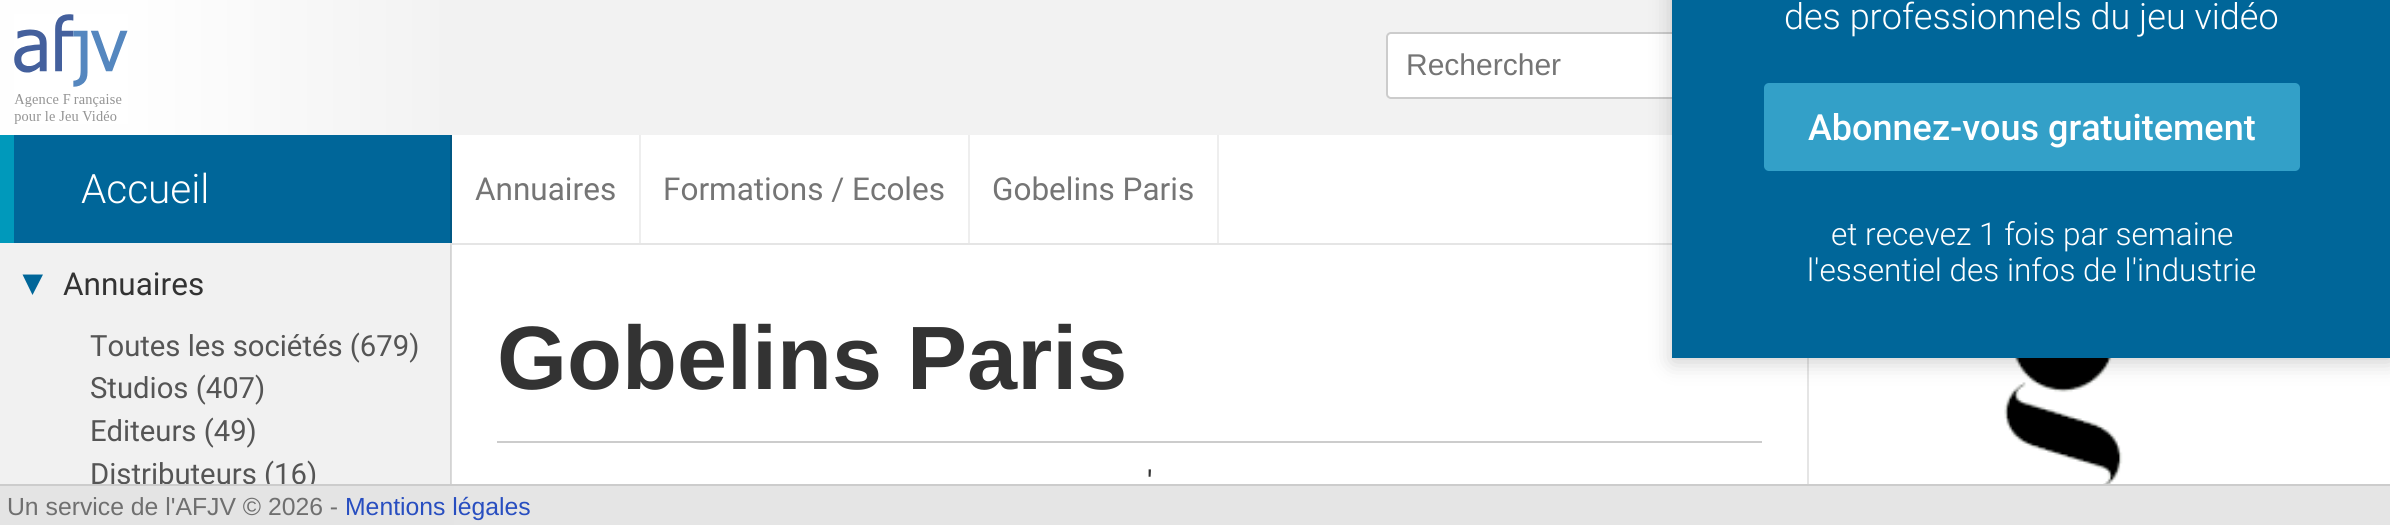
import math
import cairo

surface = cairo.ImageSurface(cairo.FORMAT_RGB24, 2390, 525)
c = cairo.Context(surface)
options = cairo.FontOptions()
options.set_hint_metrics(cairo.HINT_METRICS_OFF)
options.set_hint_style(cairo.HINT_STYLE_NONE)
c.set_font_options(options)
c.set_miter_limit(4)
def C(code):
 c.set_source_rgb(*(v / 255 for v in bytes.fromhex(code[-6:])))
def F(family, size, italic, bold):
 c.select_font_face(family, cairo.FONT_SLANT_ITALIC if italic else cairo.FONT_SLANT_NORMAL, cairo.FONT_WEIGHT_BOLD if bold else cairo.FONT_WEIGHT_NORMAL)
 c.set_font_size(size)
def T(x, y, s):
 c.move_to(x, y)
 c.show_text(s)
def R(x, y, w, h):
 c.rectangle(x, y, w, h)
 c.fill()
def Q(x, y, w, h, r):
 c.new_sub_path()
 for i, (u, v) in enumerate([(x + w - r, y + h - r), (x + r, y + h - r), (x + r, y + r), (x + w - r, y + r)]):
  c.arc(u, v, r, i * math.pi / 2, (i + 1) * math.pi / 2)
 c.close_path()
def S(x, y, w, h, r, blur, alpha):
 c.push_group_with_content(cairo.CONTENT_ALPHA)
 c.set_operator(cairo.OPERATOR_SOURCE)
 for i in range(15, -16, -2):
  e = blur * i / 6
  if min(w, h) + 2 * e > 0:
   c.set_source_rgba(0, 0, 0, alpha * math.erfc((i - 1) / 8.5) / 2)
   Q(x - e, y - e, w + 2 * e, h + 2 * e, max(0, min(r + e + blur * .6, min(w, h) / 2 + e)))
   c.fill()
 c.mask(c.pop_group())
def I(path, x, y, w, h):
 c.save()
 c.set_source_surface(cairo.ImageSurface.create_from_png(path), x, y)
 c.rectangle(x, y, w, h)
 c.fill()
 c.restore()
C('e5e5e5')
c.paint()
C('f2f2f2')
R(452,0,1220,135)
gradient = cairo.LinearGradient(0,68,452,67)
gradient.add_color_stop_rgba(0,0.996,0.996,0.996,1)
gradient.add_color_stop_rgba(.3,0.996,0.996,0.996,1)
gradient.add_color_stop_rgba(1,0.949,0.949,0.949,1)
c.set_source(gradient)
R(0,0,452,135)
I('1.png',14,14,114,110)
C('ffffff')
Q(1387,33,977,65,4)
c.fill_preserve()
C('cccccc')
c.stroke()
F('Liberation Sans',30,0,0)
C('757575')
T(1406,75,'Rechercher')
C('000000')
S(0,245,450,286,0,2,.2)
C('ffffff')
R(452,135,1220,108)
R(452,245,1938,239)
C('e5e5e5')
R(1807,358,2,126)
I('2.png',1854,358,419,126)
C('000000')
S(1672,-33,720,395,0,11,.2)
C('006699')
R(1672,0,718,358)
F('Roboto Light',36,0,0)
C('ffffff')
T(1784,29,'des professionnels du jeu vidéo')
C('33a0c8')
Q(1764,83,536,88,5)
c.fill()
F('Roboto Medium',36,0,0)
C('ffffff')
T(1808,140,'Abonnez-vous gratuitement')
F('Roboto Light',31.5,0,0)
T(1831,245,'et recevez 1 fois par semaine')
T(1807,281,'l\'essentiel des infos de l\'industrie')
C('006699')
R(14,135,436,108)
C('005783')
R(450,135,2,108)
C('0099bb')
R(0,135,14,108)
F('Roboto Light',40.5,0,0)
C('ffffff')
T(81,203,'Accueil')
C('eeeeee')
R(639,135,2,108)
F('Roboto',31.5,0,0)
C('757575')
T(475,200,'Annuaires')
C('eeeeee')
R(968,135,2,108)
C('757575')
T(663,200,'Formations / Ecoles')
C('eeeeee')
R(1217,135,2,108)
C('757575')
T(992,200,'Gobelins Paris')
C('f1f1f1')
R(0,243,450,241)
C('006699')
c.new_path()
c.move_to(43,274.5)
c.line_to(32.5,295)
c.line_to(22.5,274.5)
c.close_path()
c.fill()
C('333333')
T(63,295,'Annuaires')
F('Roboto',29.25,0,0)
C('555555')
T(90,356,'Toutes les sociétés (679)')
T(90,398,'Studios (407)')
T(90,441,'Editeurs (49)')
T(90,484,'Distributeurs (16)')
F('Liberation Sans',90,0,1)
C('333333')
T(497,389,'Gobelins Paris')
C('cccccc')
R(497,441,1265,2)
F('Roboto',31.5,0,0)
C('333333')
T(1147,493,'\'')
C('e4e4e4')
R(0,486,453,39)
C('cccccc')
R(0,484,2390,2)
F('Liberation Sans',24.75,0,0)
C('6f6f6f')
T(7,515,'Un service de l\'AFJV © 2026 -')
C('284ec0')
T(345,515,'Mentions légales')
surface.write_to_png('o.png')
